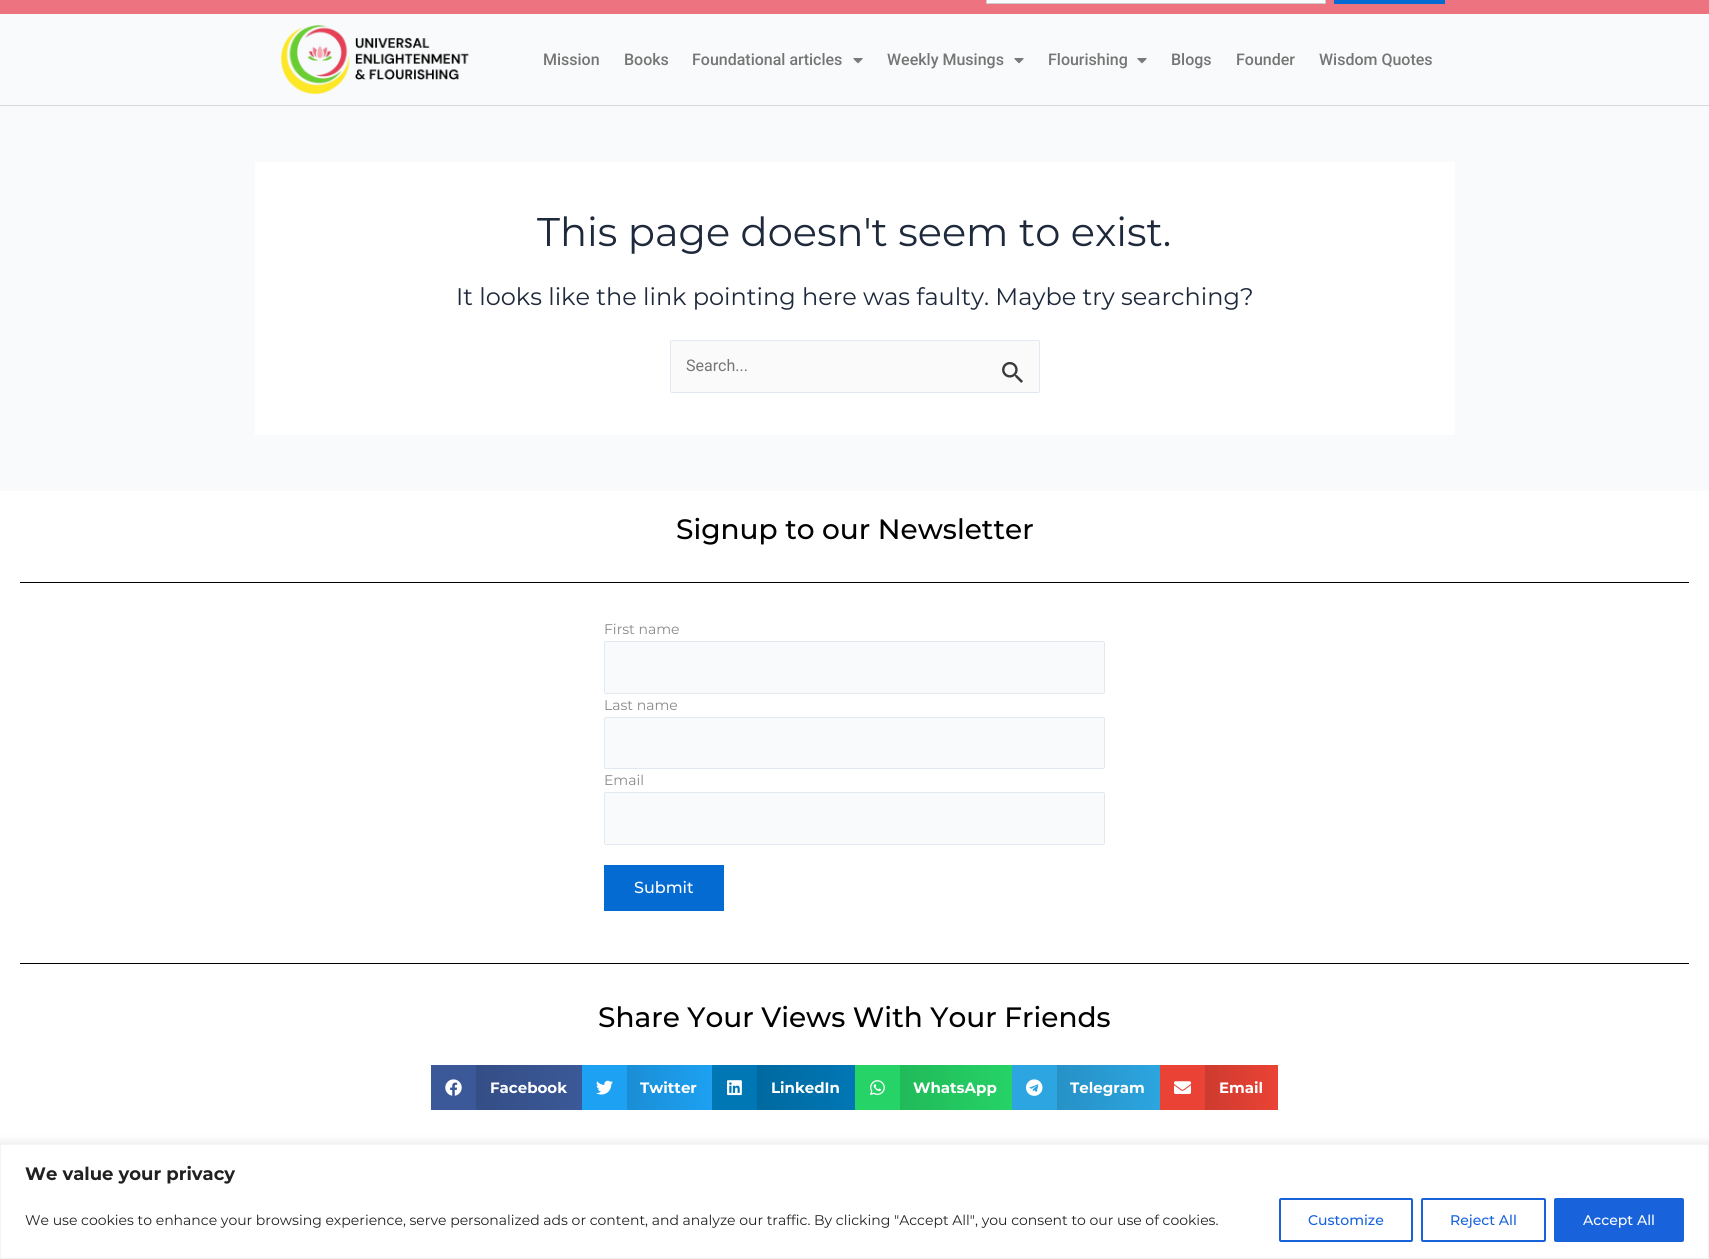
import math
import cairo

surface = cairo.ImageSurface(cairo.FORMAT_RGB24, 1709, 1259)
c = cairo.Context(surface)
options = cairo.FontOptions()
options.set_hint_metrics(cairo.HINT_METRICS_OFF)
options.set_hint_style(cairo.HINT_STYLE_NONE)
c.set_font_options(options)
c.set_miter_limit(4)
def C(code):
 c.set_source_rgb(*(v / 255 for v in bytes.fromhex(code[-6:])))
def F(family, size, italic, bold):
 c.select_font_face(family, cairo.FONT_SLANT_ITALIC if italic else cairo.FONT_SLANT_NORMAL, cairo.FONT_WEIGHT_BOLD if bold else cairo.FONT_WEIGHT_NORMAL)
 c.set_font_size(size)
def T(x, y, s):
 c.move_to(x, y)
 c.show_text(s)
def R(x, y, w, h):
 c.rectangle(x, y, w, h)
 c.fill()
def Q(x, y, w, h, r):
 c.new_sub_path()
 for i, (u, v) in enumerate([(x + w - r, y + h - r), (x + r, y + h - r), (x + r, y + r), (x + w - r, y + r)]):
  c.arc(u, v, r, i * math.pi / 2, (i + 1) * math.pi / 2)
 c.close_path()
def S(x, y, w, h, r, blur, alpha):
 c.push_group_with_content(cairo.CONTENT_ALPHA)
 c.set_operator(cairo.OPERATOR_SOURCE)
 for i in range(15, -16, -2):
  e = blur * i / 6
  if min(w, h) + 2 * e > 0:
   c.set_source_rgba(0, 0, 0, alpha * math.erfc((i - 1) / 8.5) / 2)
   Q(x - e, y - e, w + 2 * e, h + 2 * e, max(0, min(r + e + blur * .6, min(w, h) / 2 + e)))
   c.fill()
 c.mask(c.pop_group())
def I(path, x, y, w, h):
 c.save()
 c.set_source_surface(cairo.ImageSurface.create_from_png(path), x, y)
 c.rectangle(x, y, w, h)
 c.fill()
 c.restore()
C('f9fafb')
c.paint()
C('ee7380')
R(0,0,1709,14)
C('f9fafb')
c.rectangle(986.5,-.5,339,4)
c.fill_preserve()
C('cdcdcd')
c.set_line_width(1)
c.stroke()
C('046bd2')
R(1334,0,111,4)
C('d7d7d7')
R(0,105,1709,1)
I('1.png',281,25,188,70)
F('Roboto Medium',16,0,0)
C('757575')
T(543,65,'Mission')
T(624,65,'Books')
T(692,65,'Foundational articles')
I('2.png',853,58,10,6)
T(887,65,'Weekly Musings')
I('2.png',1014,58,10,6)
T(1048,65,'Flourishing')
I('2.png',1137,58,10,6)
T(1171,65,'Blogs')
T(1236,65,'Founder')
T(1319,65,'Wisdom Quotes')
C('ffffff')
R(255,162,1200,273)
F('Montserrat',40,0,0)
C('1e293b')
T(537,246,'This page doesn\'t seem to exist.')
F('Montserrat',24,0,0)
T(456,305,'It looks like the link pointing here was faulty. Maybe try searching?')
C('fafafa')
Q(670.5,340.5,369,52,1.5)
c.fill_preserve()
C('e2e8f0')
c.stroke()
F('Roboto',16,0,0)
C('757575')
T(686,371,'Search...')
I('3.png',1002,361,21,22)
C('ffffff')
R(0,491,1709,653)
F('Montserrat Medium',28,0,0)
C('000000')
T(676,539,'Signup to our Newsletter')
R(20,582,1669,1)
F('Montserrat',14,0,0)
C('888888')
T(604,634,'First name')
C('f9fafb')
Q(604.5,641.5,500,52,1.5)
c.fill_preserve()
C('e2e8f0')
c.stroke()
C('888888')
T(604,710,'Last name')
C('f9fafb')
Q(604.5,717.5,500,51,1.5)
c.fill_preserve()
C('e2e8f0')
c.stroke()
C('888888')
T(604,785,'Email')
C('f9fafb')
Q(604.5,792.5,500,52,1.5)
c.fill_preserve()
C('e2e8f0')
c.stroke()
C('046bd2')
R(604,865,120,46)
F('Montserrat Medium',16,0,0)
C('ffffff')
T(634,893,'Submit')
C('000000')
R(20,963,1669,1)
F('Montserrat Medium',28,0,0)
T(598,1027,'Share Your Views With Your Friends')
C('3b5998')
R(431,1065,45,45)
I('4.png',445,1079,17,17)
gradient = cairo.LinearGradient(476,1088,582,1088)
gradient.add_color_stop_rgba(0,0.204,0.306,0.525,1)
gradient.add_color_stop_rgba(1,0.231,0.349,0.596,1)
c.set_source(gradient)
R(476,1065,106,45)
F('Montserrat',15,0,1)
C('ffffff')
T(490,1093,'Facebook')
C('1da1f2')
R(582,1065,45,45)
I('5.png',596,1080,17,15)
gradient = cairo.LinearGradient(627,1088,712,1088)
gradient.add_color_stop_rgba(0,0.102,0.557,0.835,1)
gradient.add_color_stop_rgba(1,0.114,0.631,0.949,1)
c.set_source(gradient)
R(627,1065,85,45)
C('ffffff')
T(640,1093,'Twitter')
C('0077b5')
R(712,1065,45,45)
I('6.png',727,1080,15,16)
gradient = cairo.LinearGradient(757,1088,855,1088)
gradient.add_color_stop_rgba(0,0,0.412,0.624,1)
gradient.add_color_stop_rgba(1,0,0.467,0.71,1)
c.set_source(gradient)
R(757,1065,98,45)
C('ffffff')
T(771,1093,'LinkedIn')
C('25d366')
R(855,1065,45,45)
I('7.png',870,1080,15,15)
gradient = cairo.LinearGradient(900,1088,1012,1088)
gradient.add_color_stop_rgba(0,0.129,0.729,0.353,1)
gradient.add_color_stop_rgba(1,0.145,0.827,0.4,1)
c.set_source(gradient)
R(900,1065,112,45)
C('ffffff')
T(913,1093,'WhatsApp')
C('2ca5e0')
R(1012,1065,45,45)
I('8.png',1026,1079,17,17)
gradient = cairo.LinearGradient(1057,1088,1160,1088)
gradient.add_color_stop_rgba(0,0.153,0.569,0.773,1)
gradient.add_color_stop_rgba(1,0.173,0.647,0.878,1)
c.set_source(gradient)
R(1057,1065,103,45)
C('ffffff')
T(1070,1093,'Telegram')
C('ea4335')
R(1160,1065,45,45)
I('9.png',1174,1081,17,13)
gradient = cairo.LinearGradient(1205,1088,1278,1088)
gradient.add_color_stop_rgba(0,0.808,0.231,0.184,1)
gradient.add_color_stop_rgba(1,0.918,0.263,0.208,1)
c.set_source(gradient)
R(1205,1065,73,45)
C('ffffff')
T(1219,1093,'Email')
C('acabab')
S(0,1143,1709,115,0,5,.3)
C('ffffff')
c.rectangle(.5,1144.5,1708,114)
c.fill_preserve()
C('f4f4f4')
c.stroke()
F('Montserrat',18,0,1)
C('212121')
T(25,1180,'We value your privacy')
F('Montserrat',14,0,0)
T(25,1225,'We use cookies to enhance your browsing experience, serve personalized ads or content, and analyze our traffic. By clicking "Accept All", you consent to our use of cookies.')
Q(1280,1199,132,42,1)
C('1863dc')
c.set_line_width(2)
c.stroke()
F('Montserrat Medium',14,0,0)
T(1308,1225,'Customize')
Q(1422,1199,123,42,1)
c.stroke()
T(1450,1225,'Reject All')
Q(1555,1199,128,42,1)
c.fill_preserve()
c.stroke()
C('ffffff')
T(1583,1225,'Accept All')
surface.write_to_png('o.png')
